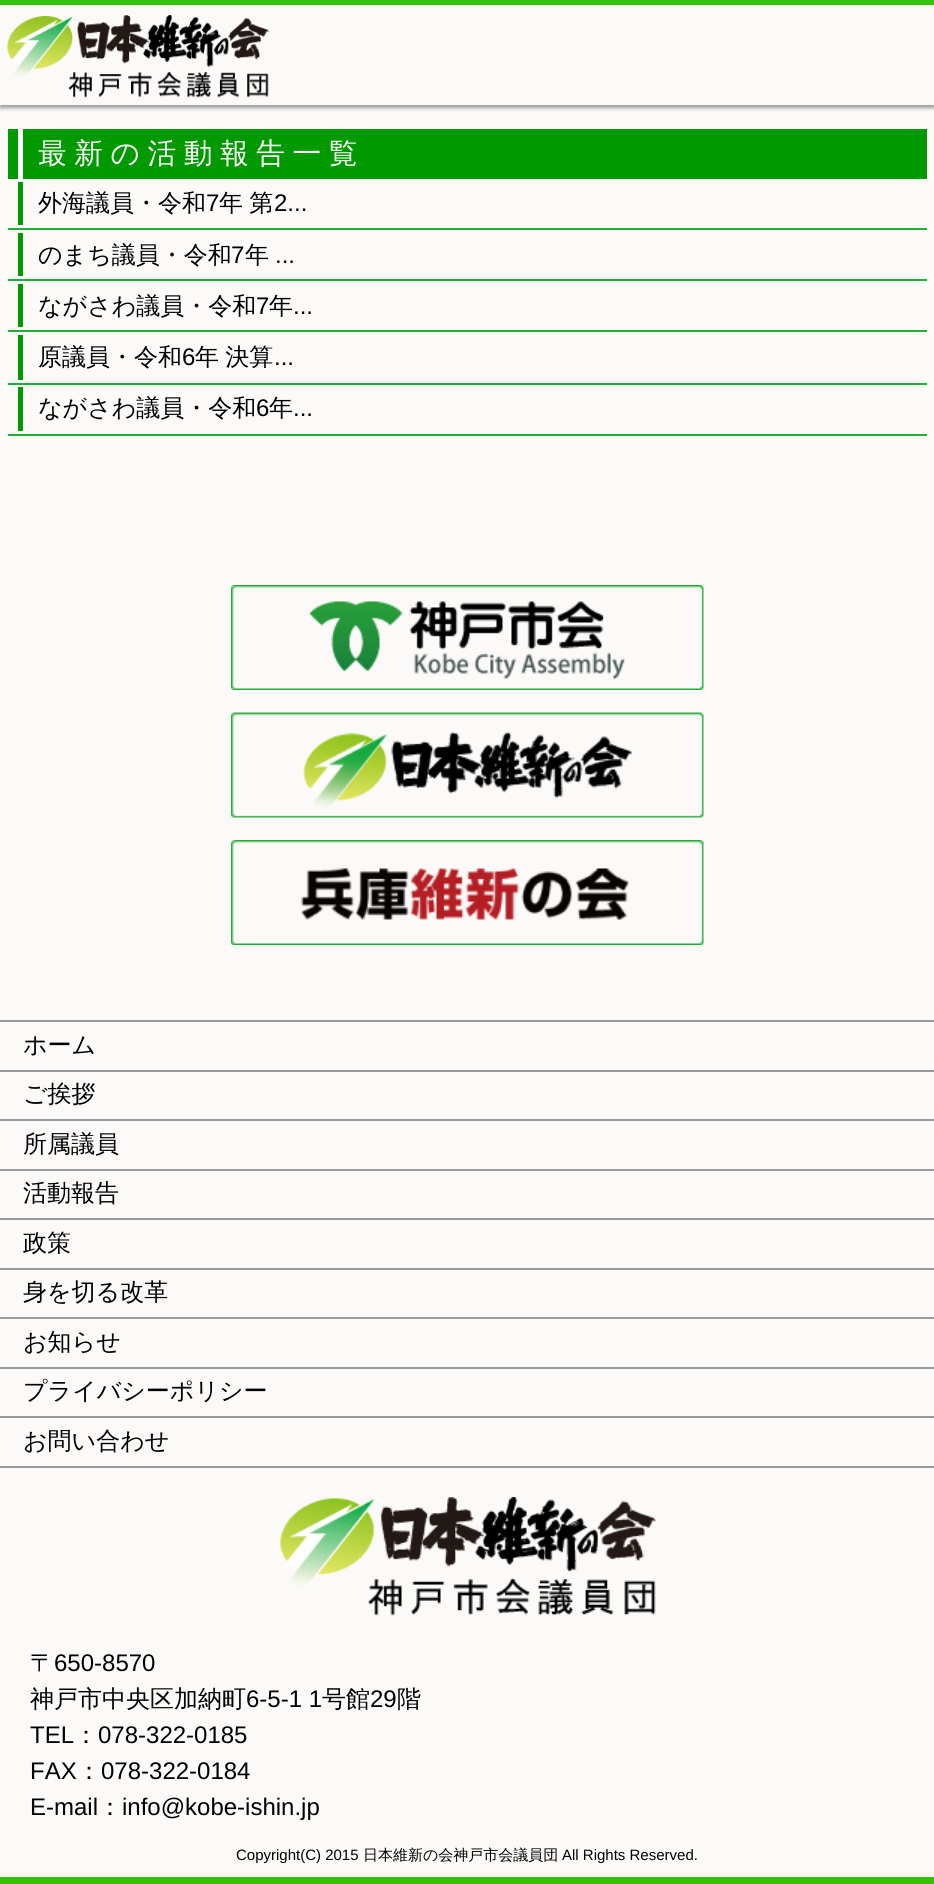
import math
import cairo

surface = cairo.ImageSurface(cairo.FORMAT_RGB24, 934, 1884)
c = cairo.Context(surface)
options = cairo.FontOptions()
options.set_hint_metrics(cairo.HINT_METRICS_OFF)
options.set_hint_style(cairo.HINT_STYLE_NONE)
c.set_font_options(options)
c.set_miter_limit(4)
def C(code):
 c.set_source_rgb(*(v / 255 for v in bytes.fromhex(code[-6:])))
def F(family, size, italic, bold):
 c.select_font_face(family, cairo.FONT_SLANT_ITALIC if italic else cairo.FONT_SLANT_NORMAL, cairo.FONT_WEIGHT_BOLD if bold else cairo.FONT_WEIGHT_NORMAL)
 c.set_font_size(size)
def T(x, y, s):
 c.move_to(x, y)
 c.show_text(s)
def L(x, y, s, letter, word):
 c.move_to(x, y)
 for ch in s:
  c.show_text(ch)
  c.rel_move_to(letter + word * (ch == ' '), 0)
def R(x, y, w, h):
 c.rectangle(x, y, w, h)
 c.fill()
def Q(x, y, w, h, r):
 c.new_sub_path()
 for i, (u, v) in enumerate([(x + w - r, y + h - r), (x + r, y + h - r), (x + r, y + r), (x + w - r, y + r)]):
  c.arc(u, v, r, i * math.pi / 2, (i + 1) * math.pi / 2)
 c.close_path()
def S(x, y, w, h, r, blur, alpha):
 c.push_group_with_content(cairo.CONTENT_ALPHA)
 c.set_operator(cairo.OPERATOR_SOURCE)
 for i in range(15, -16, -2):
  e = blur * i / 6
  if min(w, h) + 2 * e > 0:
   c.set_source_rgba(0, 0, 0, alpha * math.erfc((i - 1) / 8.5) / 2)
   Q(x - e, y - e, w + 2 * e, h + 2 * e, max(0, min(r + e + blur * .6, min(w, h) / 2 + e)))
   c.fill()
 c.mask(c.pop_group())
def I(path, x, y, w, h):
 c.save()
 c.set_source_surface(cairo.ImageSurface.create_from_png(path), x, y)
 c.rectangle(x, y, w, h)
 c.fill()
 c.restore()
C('fcfaf8')
c.paint()
C('999999')
S(0,3,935,105,0,2,1)
C('fcfaf8')
R(0,5,934,100)
C('36c200')
R(0,0,934,5)
I('1.png',7,15,262,83)
C('009900')
R(8,129,919,50)
C('ffffff')
R(18,129,5,50)
F('WenQuanYi Zen Hei Medium',28.75,0,0)
L(38,163,'最新の活動報告一覧',7.5,0)
C('22ac38')
R(8,228,919,2)
C('009900')
R(18,182,5,43)
F('WenQuanYi Zen Hei Medium',24,0,0)
C('000000')
T(38,211,'外海議員・令和')
F('Liberation Sans',24,0,0)
T(206,211,'7')
F('WenQuanYi Zen Hei Medium',24,0,0)
L(219,211,'年 第',0,-1)
F('Liberation Sans',24,0,0)
T(274,211,'2...')
C('22ac38')
R(8,279,919,2)
C('009900')
R(18,233,5,43)
F('WenQuanYi Zen Hei Medium',24,0,0)
C('000000')
T(38,263,'のまち議員・令和')
F('Liberation Sans',24,0,0)
T(231,263,'7')
F('WenQuanYi Zen Hei Medium',24,0,0)
T(245,263,'年')
F('Liberation Sans',24,0,0)
T(275,263,'...')
C('22ac38')
R(8,330,919,2)
C('009900')
R(18,284,5,43)
F('WenQuanYi Zen Hei Medium',24,0,0)
C('000000')
T(38,314,'ながさわ議員・令和')
F('Liberation Sans',24,0,0)
T(256,314,'7')
F('WenQuanYi Zen Hei Medium',24,0,0)
T(269,314,'年')
F('Liberation Sans',24,0,0)
T(293,314,'...')
C('22ac38')
R(8,383,919,2)
C('009900')
R(18,335,5,45)
F('WenQuanYi Zen Hei Medium',24,0,0)
C('000000')
T(38,365,'原議員・令和')
F('Liberation Sans',24,0,0)
T(182,365,'6')
F('WenQuanYi Zen Hei Medium',24,0,0)
L(195,365,'年 決算',0,-1)
F('Liberation Sans',24,0,0)
T(274,365,'...')
C('22ac38')
R(8,434,919,2)
C('009900')
R(18,387,5,44)
F('WenQuanYi Zen Hei Medium',24,0,0)
C('000000')
T(38,416,'ながさわ議員・令和')
F('Liberation Sans',24,0,0)
T(256,416,'6')
F('WenQuanYi Zen Hei Medium',24,0,0)
T(269,416,'年')
F('Liberation Sans',24,0,0)
T(293,416,'...')
I('2.png',231,585,473,105)
I('3.png',231,712,473,106)
I('4.png',231,840,473,105)
C('36c200')
R(0,1877,934,7)
C('999999')
R(0,1020,934,2)
R(0,1070,934,2)
F('WenQuanYi Zen Hei Medium',24,0,0)
C('000000')
T(23,1053,'ホーム')
C('999999')
R(0,1119,934,2)
C('000000')
T(23,1102,'ご挨拶')
C('999999')
R(0,1169,934,2)
C('000000')
T(23,1152,'所属議員')
C('999999')
R(0,1218,934,2)
C('000000')
T(23,1201,'活動報告')
C('999999')
R(0,1268,934,2)
C('000000')
T(23,1251,'政策')
C('999999')
R(0,1317,934,2)
C('000000')
T(23,1300,'身を切る改革')
C('999999')
R(0,1367,934,2)
C('000000')
T(23,1350,'お知らせ')
C('999999')
R(0,1416,934,2)
C('000000')
T(23,1399,'プライバシーポリシー')
C('999999')
R(0,1466,934,2)
C('000000')
T(23,1449,'お問い合わせ')
I('5.png',280,1497,376,119)
T(30,1671,'〒')
F('Liberation Sans',24,0,0)
T(54,1671,'650-8570')
F('WenQuanYi Zen Hei Medium',24,0,0)
T(30,1707,'神戸市中央区加納町')
F('Liberation Sans',24,0,0)
T(246,1707,'6-5-1 1')
F('WenQuanYi Zen Hei Medium',24,0,0)
T(322,1707,'号館')
F('Liberation Sans',24,0,0)
T(370,1707,'29')
F('WenQuanYi Zen Hei Medium',24,0,0)
T(397,1707,'階')
F('Liberation Sans',24,0,0)
T(30,1743,'TEL')
F('WenQuanYi Zen Hei Medium',24,0,0)
T(74,1743,'：')
F('Liberation Sans',24,0,0)
T(98,1743,'078-322-0185')
T(30,1779,'FAX')
F('WenQuanYi Zen Hei Medium',24,0,0)
T(77,1779,'：')
F('Liberation Sans',24,0,0)
T(101,1779,'078-322-0184')
T(30,1815,'E-mail')
F('WenQuanYi Zen Hei Medium',24,0,0)
T(98,1815,'：')
F('Liberation Sans',24,0,0)
T(122,1815,'info@kobe-ishin.jp')
F('Liberation Sans',15,0,0)
T(236,1860,'Copyright(C) 2015')
F('WenQuanYi Zen Hei Medium',15,0,0)
T(363,1860,'日本維新の会神戸市会議員団')
F('Liberation Sans',15,0,0)
T(562,1860,'All Rights Reserved.')
surface.write_to_png('o.png')
